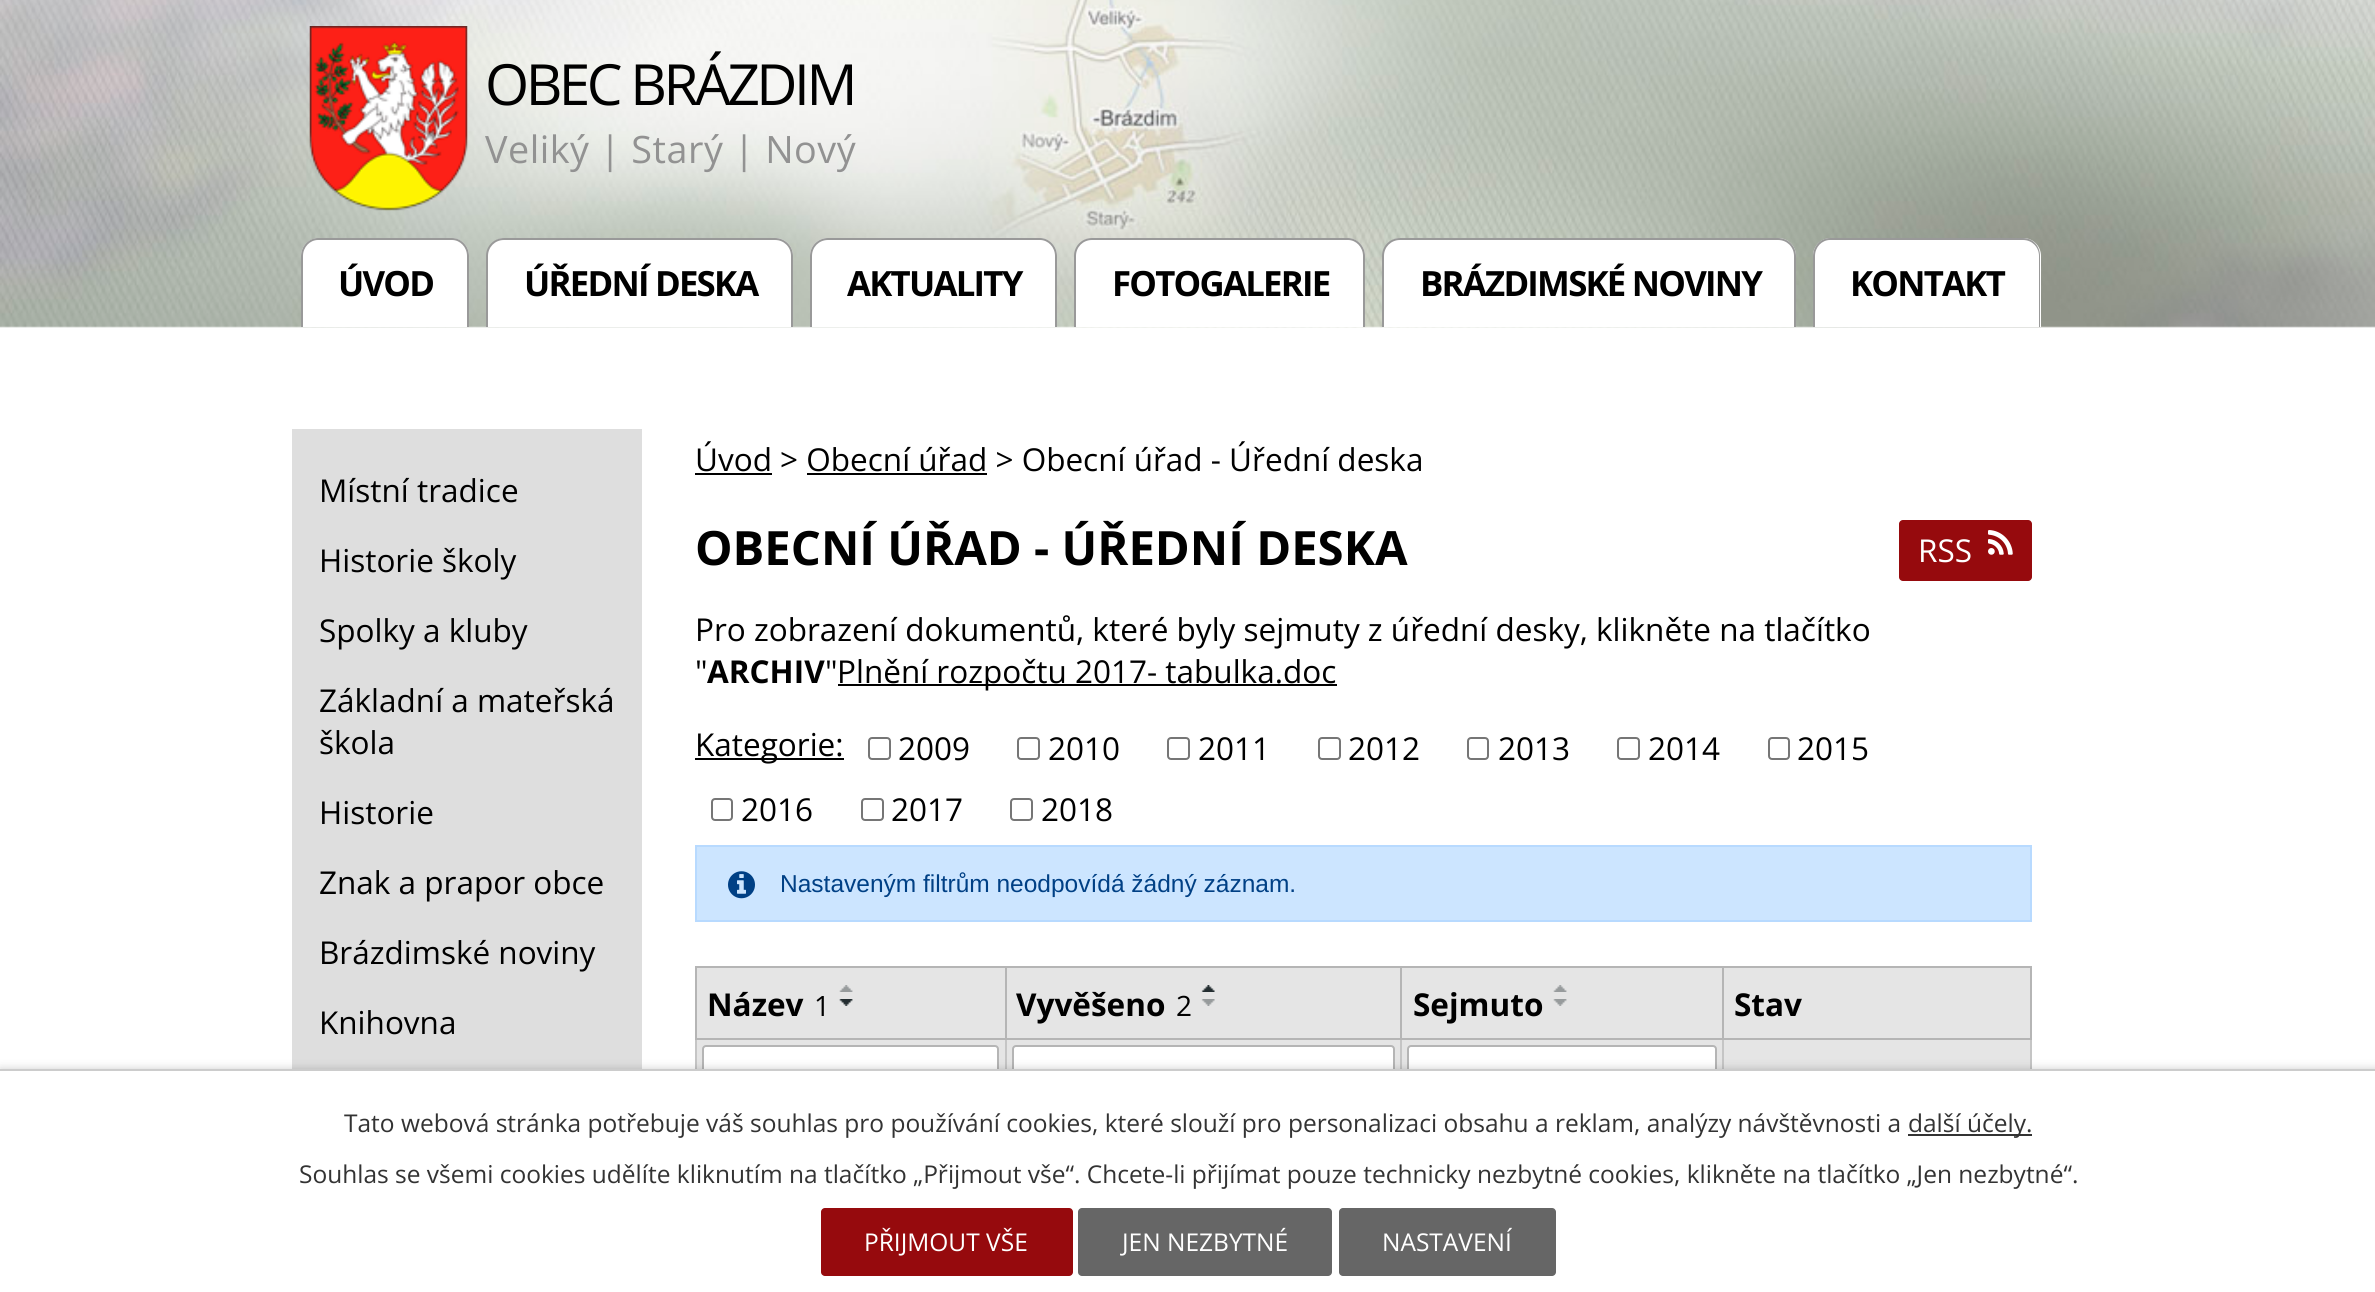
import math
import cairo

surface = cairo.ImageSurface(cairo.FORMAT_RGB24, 2375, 1292)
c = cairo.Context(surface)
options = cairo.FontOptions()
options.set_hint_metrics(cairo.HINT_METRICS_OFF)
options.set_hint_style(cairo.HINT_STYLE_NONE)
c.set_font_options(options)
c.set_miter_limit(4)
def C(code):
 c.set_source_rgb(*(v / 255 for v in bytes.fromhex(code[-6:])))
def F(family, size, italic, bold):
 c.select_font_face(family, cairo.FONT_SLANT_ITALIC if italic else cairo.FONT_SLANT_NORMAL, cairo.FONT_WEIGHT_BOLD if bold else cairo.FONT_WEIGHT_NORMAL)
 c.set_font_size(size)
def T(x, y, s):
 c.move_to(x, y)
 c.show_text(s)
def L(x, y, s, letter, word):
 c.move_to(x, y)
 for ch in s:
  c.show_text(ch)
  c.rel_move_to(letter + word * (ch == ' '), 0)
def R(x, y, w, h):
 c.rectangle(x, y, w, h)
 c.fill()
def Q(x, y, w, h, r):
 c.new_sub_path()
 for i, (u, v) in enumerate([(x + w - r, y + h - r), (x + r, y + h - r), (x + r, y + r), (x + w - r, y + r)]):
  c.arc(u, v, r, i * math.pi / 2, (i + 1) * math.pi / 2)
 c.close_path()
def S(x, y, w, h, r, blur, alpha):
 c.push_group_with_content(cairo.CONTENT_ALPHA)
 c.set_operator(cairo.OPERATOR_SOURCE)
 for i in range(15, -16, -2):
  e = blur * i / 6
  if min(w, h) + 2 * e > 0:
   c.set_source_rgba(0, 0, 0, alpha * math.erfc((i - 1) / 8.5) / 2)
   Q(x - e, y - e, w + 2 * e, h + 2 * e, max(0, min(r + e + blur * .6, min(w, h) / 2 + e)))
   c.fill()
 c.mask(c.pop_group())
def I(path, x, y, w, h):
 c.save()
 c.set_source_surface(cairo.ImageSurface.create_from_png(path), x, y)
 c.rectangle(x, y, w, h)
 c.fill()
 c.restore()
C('ffffff')
c.paint()
I('1.png',0,0,2375,1069)
I('2.png',309,26,159,185)
F('Open Sans',56.75,0,0)
C('000000')
L(485,105,'OBEC BRÁZDIM',-3.5,0)
F('Open Sans',37.75,0,0)
C('929292')
L(485,163,'Veliký | Starý | Nový',.5,0)
C('ffffff')
c.new_path()
c.move_to(319,238)
c.line_to(451,238)
c.curve_to(461,238,469,246,469,256)
c.line_to(469,327)
c.line_to(301,327)
c.line_to(301,256)
c.curve_to(301,246,309,238,319,238)
c.close_path()
c.fill()
C('999999')
c.set_fill_rule(cairo.FILL_RULE_EVEN_ODD)
c.new_path()
c.move_to(318,238)
c.line_to(452,238)
c.curve_to(461,238,469,246,469,256)
c.line_to(469,327)
c.line_to(301,327)
c.line_to(301,256)
c.curve_to(301,246,309,238,318,238)
c.close_path()
c.move_to(318,240)
c.line_to(452,240)
c.curve_to(460,240,467,247,467,256)
c.line_to(467,327)
c.line_to(303,327)
c.line_to(303,256)
c.curve_to(303,247,310,240,318,240)
c.close_path()
c.fill()
F('Open Sans',34.75,0,1)
C('000000')
L(338,296,'ÚVOD',-1.75,0)
C('ffffff')
c.new_path()
c.move_to(505,238)
c.line_to(775,238)
c.curve_to(785,238,793,246,793,256)
c.line_to(793,327)
c.line_to(487,327)
c.line_to(487,256)
c.curve_to(487,246,495,238,505,238)
c.close_path()
c.fill()
C('999999')
c.new_path()
c.move_to(504,238)
c.line_to(775,238)
c.curve_to(785,238,793,246,793,256)
c.line_to(793,327)
c.line_to(486,327)
c.line_to(486,256)
c.curve_to(486,246,494,238,504,238)
c.close_path()
c.move_to(504,240)
c.line_to(775,240)
c.curve_to(784,240,791,247,791,256)
c.line_to(791,327)
c.line_to(488,327)
c.line_to(488,256)
c.curve_to(488,247,495,240,504,240)
c.close_path()
c.fill()
C('000000')
L(524,296,'ÚŘEDNÍ DESKA',-1.75,0)
C('ffffff')
c.new_path()
c.move_to(828,238)
c.line_to(1039,238)
c.curve_to(1049,238,1057,246,1057,256)
c.line_to(1057,327)
c.line_to(810,327)
c.line_to(810,256)
c.curve_to(810,246,818,238,828,238)
c.close_path()
c.fill()
C('999999')
c.new_path()
c.move_to(828,238)
c.line_to(1040,238)
c.curve_to(1049,238,1057,246,1057,256)
c.line_to(1057,327)
c.line_to(810,327)
c.line_to(810,256)
c.curve_to(810,246,818,238,828,238)
c.close_path()
c.move_to(828,240)
c.line_to(1040,240)
c.curve_to(1048,240,1055,247,1055,256)
c.line_to(1055,327)
c.line_to(812,327)
c.line_to(812,256)
c.curve_to(812,247,819,240,828,240)
c.close_path()
c.fill()
C('000000')
L(847,296,'AKTUALITY',-1.75,0)
C('ffffff')
c.new_path()
c.move_to(1093,238)
c.line_to(1347,238)
c.curve_to(1357,238,1365,246,1365,256)
c.line_to(1365,327)
c.line_to(1075,327)
c.line_to(1075,256)
c.curve_to(1075,246,1083,238,1093,238)
c.close_path()
c.fill()
C('999999')
c.new_path()
c.move_to(1092,238)
c.line_to(1348,238)
c.curve_to(1357,238,1365,246,1365,256)
c.line_to(1365,327)
c.line_to(1074,327)
c.line_to(1074,256)
c.curve_to(1074,246,1082,238,1092,238)
c.close_path()
c.move_to(1092,240)
c.line_to(1348,240)
c.curve_to(1356,240,1363,247,1363,256)
c.line_to(1363,327)
c.line_to(1076,327)
c.line_to(1076,256)
c.curve_to(1076,247,1083,240,1092,240)
c.close_path()
c.fill()
C('000000')
L(1112,296,'FOTOGALERIE',-1.75,0)
C('ffffff')
c.new_path()
c.move_to(1401,238)
c.line_to(1778,238)
c.curve_to(1788,238,1796,246,1796,256)
c.line_to(1796,327)
c.line_to(1383,327)
c.line_to(1383,256)
c.curve_to(1383,246,1391,238,1401,238)
c.close_path()
c.fill()
C('999999')
c.new_path()
c.move_to(1400,238)
c.line_to(1778,238)
c.curve_to(1788,238,1796,246,1796,256)
c.line_to(1796,327)
c.line_to(1382,327)
c.line_to(1382,256)
c.curve_to(1382,246,1390,238,1400,238)
c.close_path()
c.move_to(1400,240)
c.line_to(1778,240)
c.curve_to(1787,240,1794,247,1794,256)
c.line_to(1794,327)
c.line_to(1384,327)
c.line_to(1384,256)
c.curve_to(1384,247,1391,240,1400,240)
c.close_path()
c.fill()
C('000000')
L(1420,296,'BRÁZDIMSKÉ NOVINY',-1.75,0)
C('ffffff')
c.new_path()
c.move_to(1831,238)
c.line_to(2023,238)
c.curve_to(2033,238,2041,246,2041,256)
c.line_to(2041,327)
c.line_to(1813,327)
c.line_to(1813,256)
c.curve_to(1813,246,1821,238,1831,238)
c.close_path()
c.fill()
C('999999')
c.new_path()
c.move_to(1830,238)
c.line_to(2023,238)
c.curve_to(2033,238,2040,246,2040,256)
c.line_to(2040,327)
c.line_to(1813,327)
c.line_to(1813,256)
c.curve_to(1813,246,1821,238,1830,238)
c.close_path()
c.move_to(1830,240)
c.line_to(2023,240)
c.curve_to(2032,240,2039,247,2039,256)
c.line_to(2039,327)
c.line_to(1815,327)
c.line_to(1815,256)
c.curve_to(1815,247,1822,240,1830,240)
c.close_path()
c.fill()
C('000000')
L(1850,296,'KONTAKT',-1.75,0)
C('dedede')
R(292,429,350,640)
F('Open Sans',31.5,0,0)
C('000000')
T(319,502,'Místní tradice')
T(319,572,'Historie školy')
T(319,642,'Spolky a kluby')
T(319,712,'Základní a mateřská')
T(319,754,'škola')
T(319,824,'Historie')
T(319,894,'Znak a prapor obce')
T(319,964,'Brázdimské noviny')
T(319,1034,'Knihovna')
T(695,471,'Úvod > Obecní úřad > Obecní úřad - Úřední deska')
R(695,473,77,2)
R(807,473,180,2)
F('Open Sans',47.25,0,1)
T(695,565,'OBECNÍ ÚŘAD - ÚŘEDNÍ DESKA')
C('960a0d')
Q(1899,520,133,61,4)
c.fill()
F('Open Sans',31.5,0,0)
C('ffffff')
T(1918,562,'RSS')
I('3.png',1988,530,25,25)
C('000000')
T(695,641,'Pro zobrazení dokumentů, které byly sejmuty z úřední desky, klikněte na tlačítko')
T(695,683,'"')
F('Open Sans',31.5,0,1)
T(707,683,'ARCHIV')
F('Open Sans',31.5,0,0)
T(825,683,'"')
R(838,684,499,2)
T(837,683,'Plnění rozpočtu 2017- tabulka.doc')
R(695,758,149,2)
T(695,756,'Kategorie:')
Q(869,738,21,21,3)
C('767676')
c.stroke()
C('000000')
T(898,760,'2009')
Q(1018,738,21,21,3)
C('767676')
c.stroke()
C('000000')
T(1048,760,'2010')
Q(1168,738,21,21,3)
C('767676')
c.stroke()
C('000000')
T(1198,760,'2011')
Q(1319,738,21,21,3)
C('767676')
c.stroke()
C('000000')
T(1348,760,'2012')
Q(1468,738,20,21,3)
C('767676')
c.stroke()
C('000000')
T(1498,760,'2013')
Q(1618,738,21,21,3)
C('767676')
c.stroke()
C('000000')
T(1648,760,'2014')
Q(1769,738,20,21,3)
C('767676')
c.stroke()
C('000000')
T(1797,760,'2015')
Q(712,799,20,21,3)
C('767676')
c.stroke()
C('000000')
T(741,821,'2016')
Q(862,799,21,21,3)
C('767676')
c.stroke()
C('000000')
T(891,821,'2017')
Q(1011,799,21,21,3)
C('767676')
c.stroke()
C('000000')
T(1041,821,'2018')
C('cce5ff')
c.rectangle(696,846,1335,75)
c.fill_preserve()
C('b8daff')
c.stroke()
I('4.png',728,871,27,28)
F('Liberation Sans',24.5,0,0)
C('004085')
T(780,892,'Nastaveným filtrům neodpovídá žádný záznam.')
C('e5e5e5')
R(697,968,308,70)
C('b5b5b5')
R(1722,966,310,2)
C('c5c5c5')
R(2030,1038,2,31)
C('b5b5b5')
R(2030,966,2,74)
C('e5e5e5')
R(697,1040,1333,29)
C('c5c5c5')
R(1722,1038,2,31)
C('b5b5b5')
R(1722,1038,310,2)
R(1722,966,2,74)
R(1400,966,324,2)
C('c5c5c5')
R(1400,1038,2,31)
C('b5b5b5')
R(1400,1038,324,2)
R(1400,966,2,74)
R(1005,966,397,2)
C('c5c5c5')
R(1005,1038,2,31)
C('b5b5b5')
R(1005,1038,397,2)
R(1005,966,2,74)
R(695,966,311,2)
C('c5c5c5')
R(695,1038,2,31)
C('b5b5b5')
R(695,1038,311,2)
R(695,966,2,74)
F('Open Sans',31.5,0,1)
C('000000')
T(707,1016,'Název')
F('Open Sans',28,0,0)
T(814,1016,'1')
I('5.png',839,985,14,7)
I('6.png',839,999,14,7)
C('e5e5e5')
R(1007,968,393,70)
F('Open Sans',31.5,0,1)
C('000000')
T(1016,1016,'Vyvěšeno')
F('Open Sans',28,0,0)
T(1176,1016,'2')
I('7.png',1201,985,14,7)
I('8.png',1201,999,14,7)
C('e5e5e5')
R(1402,968,320,70)
F('Open Sans',31.5,0,1)
C('000000')
T(1413,1016,'Sejmuto')
I('9.png',1553,985,14,7)
I('10.png',1553,999,14,7)
C('e5e5e5')
R(1724,968,306,70)
C('000000')
T(1734,1016,'Stav')
C('ffffff')
Q(703,1046,295,64,3)
c.fill_preserve()
C('b5b5b5')
c.stroke()
C('ffffff')
Q(1013,1046,381,64,3)
c.fill_preserve()
C('b5b5b5')
c.stroke()
C('ffffff')
Q(1408,1046,308,64,3)
c.fill_preserve()
C('b5b5b5')
c.stroke()
C('000000')
S(0,1069,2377,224,0,4.5,.2)
C('ffffff')
R(0,1071,2375,221)
C('cccccc')
R(0,1069,2375,2)
F('Open Sans',24.5,0,0)
C('333333')
T(344,1132,'Tato webová stránka potřebuje váš souhlas pro používání cookies, které slouží pro personalizaci obsahu a reklam, analýzy návštěvnosti a')
R(1908,1134,124,2)
T(1908,1132,'další účely.')
T(299,1183,'Souhlas se všemi cookies udělíte kliknutím na tlačítko „Přijmout vše“. Chcete-li přijímat pouze technicky nezbytné cookies, klikněte na tlačítko „Jen nezbytné“.')
C('960a0d')
Q(821,1208,252,68,4)
c.fill()
C('ffffff')
T(864,1251,'PŘIJMOUT VŠE')
C('666666')
Q(1078,1208,254,68,4)
c.fill()
C('ffffff')
T(1122,1251,'JEN NEZBYTNÉ')
C('666666')
Q(1339,1208,217,68,4)
c.fill()
C('ffffff')
T(1382,1251,'NASTAVENÍ')
surface.write_to_png('o.png')
